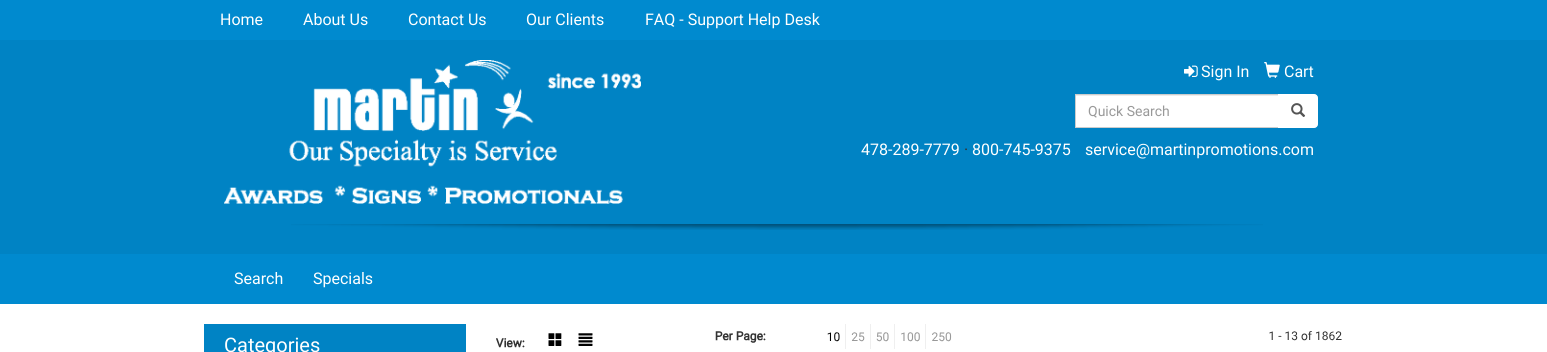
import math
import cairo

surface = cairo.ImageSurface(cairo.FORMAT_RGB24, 1547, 352)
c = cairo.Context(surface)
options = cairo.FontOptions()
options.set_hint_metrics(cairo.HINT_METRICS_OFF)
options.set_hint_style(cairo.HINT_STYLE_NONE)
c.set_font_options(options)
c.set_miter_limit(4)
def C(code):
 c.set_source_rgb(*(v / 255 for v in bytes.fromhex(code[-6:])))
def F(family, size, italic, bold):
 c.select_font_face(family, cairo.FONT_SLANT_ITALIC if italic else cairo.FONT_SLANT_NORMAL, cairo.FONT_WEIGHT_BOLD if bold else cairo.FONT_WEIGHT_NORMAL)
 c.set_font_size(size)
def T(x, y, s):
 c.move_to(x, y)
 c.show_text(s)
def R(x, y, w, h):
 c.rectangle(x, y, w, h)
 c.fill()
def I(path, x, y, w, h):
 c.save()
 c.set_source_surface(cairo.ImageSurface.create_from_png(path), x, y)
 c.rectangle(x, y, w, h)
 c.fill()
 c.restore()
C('0083c4')
c.paint()
C('008acf')
R(0,0,1547,40)
F('Roboto',16,0,0)
C('ffffff')
T(220,25,'Home')
T(303,25,'About Us')
T(408,25,'Contact Us')
T(526,25,'Our Clients')
T(645,25,'FAQ - Support Help Desk')
I('1.png',224,60,417,144)
I('2.png',1184,65,14,12)
T(1201,77,'Sign In')
I('3.png',1264,62,16,16)
T(1284,77,'Cart')
R(1076,96,202,31)
C('ececec')
R(1076,95,202,1)
c.rectangle(1075.5,94.5,203,33)
C('cccccc')
c.set_line_width(1)
c.stroke()
F('Roboto',14,0,0)
C('999999')
T(1088,116,'Quick Search')
C('ffffff')
c.new_path()
c.move_to(1278.5,94.5)
c.line_to(1314,94.5)
c.curve_to(1316,94.5,1317.5,96,1317.5,98)
c.line_to(1317.5,124)
c.curve_to(1317.5,126,1316,127.5,1314,127.5)
c.line_to(1278.5,127.5)
c.close_path()
c.fill_preserve()
c.stroke()
I('4.png',1291,103,15,14)
F('Roboto',16,0,0)
T(861,155,'478-289-7779')
C('333333')
T(964,155,'·')
C('ffffff')
T(972,155,'800-745-9375')
T(1085,155,'service@martinpromotions.com')
I('5.png',291,224,972,6)
C('008acf')
R(0,254,1547,50)
C('ffffff')
T(234,284,'Search')
T(313,284,'Specials')
R(0,304,1547,48)
C('0083c4')
R(204,324,262,28)
F('Roboto',20,0,0)
C('ffffff')
T(224,352,'Categories')
I('6.png',496,324,846,25)
surface.write_to_png('o.png')
